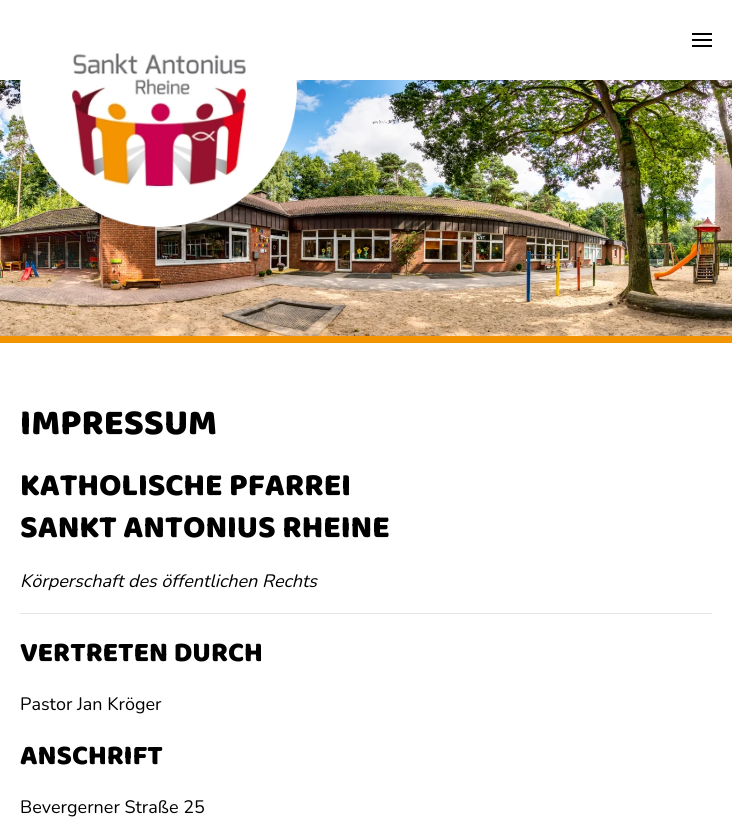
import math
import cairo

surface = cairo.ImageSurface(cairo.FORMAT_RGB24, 732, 824)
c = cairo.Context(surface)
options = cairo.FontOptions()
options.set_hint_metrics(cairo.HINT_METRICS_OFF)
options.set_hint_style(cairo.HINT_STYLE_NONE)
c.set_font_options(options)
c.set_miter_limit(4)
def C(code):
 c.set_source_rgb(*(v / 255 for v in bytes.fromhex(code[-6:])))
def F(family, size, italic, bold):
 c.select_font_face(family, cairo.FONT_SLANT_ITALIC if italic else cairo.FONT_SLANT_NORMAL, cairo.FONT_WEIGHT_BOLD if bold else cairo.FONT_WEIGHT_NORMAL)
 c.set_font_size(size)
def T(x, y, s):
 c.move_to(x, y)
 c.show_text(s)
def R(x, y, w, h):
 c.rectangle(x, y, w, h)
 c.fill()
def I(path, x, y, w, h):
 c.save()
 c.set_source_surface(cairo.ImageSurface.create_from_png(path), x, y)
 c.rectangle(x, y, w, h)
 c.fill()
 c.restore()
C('ffffff')
c.paint()
C('000000')
R(692,33,20,2)
R(692,39,20,2)
R(692,45,20,2)
I('2.png',0,80,732,256)
I('1.png',20,53,277,174)
C('f29400')
R(0,336,732,7)
F('Baloo 2 ExtraBold',36.5,0,0)
C('000000')
T(20,434,'IMPRESSUM')
F('Baloo 2 ExtraBold',32,0,0)
T(20,495,'KATHOLISCHE PFARREI')
T(20,537,'SANKT ANTONIUS RHEINE')
F('Nunito ExtraLight',18,1,0)
T(20,587,'Körperschaft des öffentlichen Rechts')
C('e5e5e7')
R(20,613,692,1)
F('Baloo 2 ExtraBold',28,0,0)
C('000000')
T(20,661,'VERTRETEN DURCH')
F('Nunito ExtraLight',18,0,0)
T(20,710,'Pastor Jan Kröger')
F('Baloo 2 ExtraBold',28,0,0)
T(20,764,'ANSCHRIFT')
F('Nunito ExtraLight',18,0,0)
T(20,813,'Bevergerner Straße 25')
surface.write_to_png('o.png')
